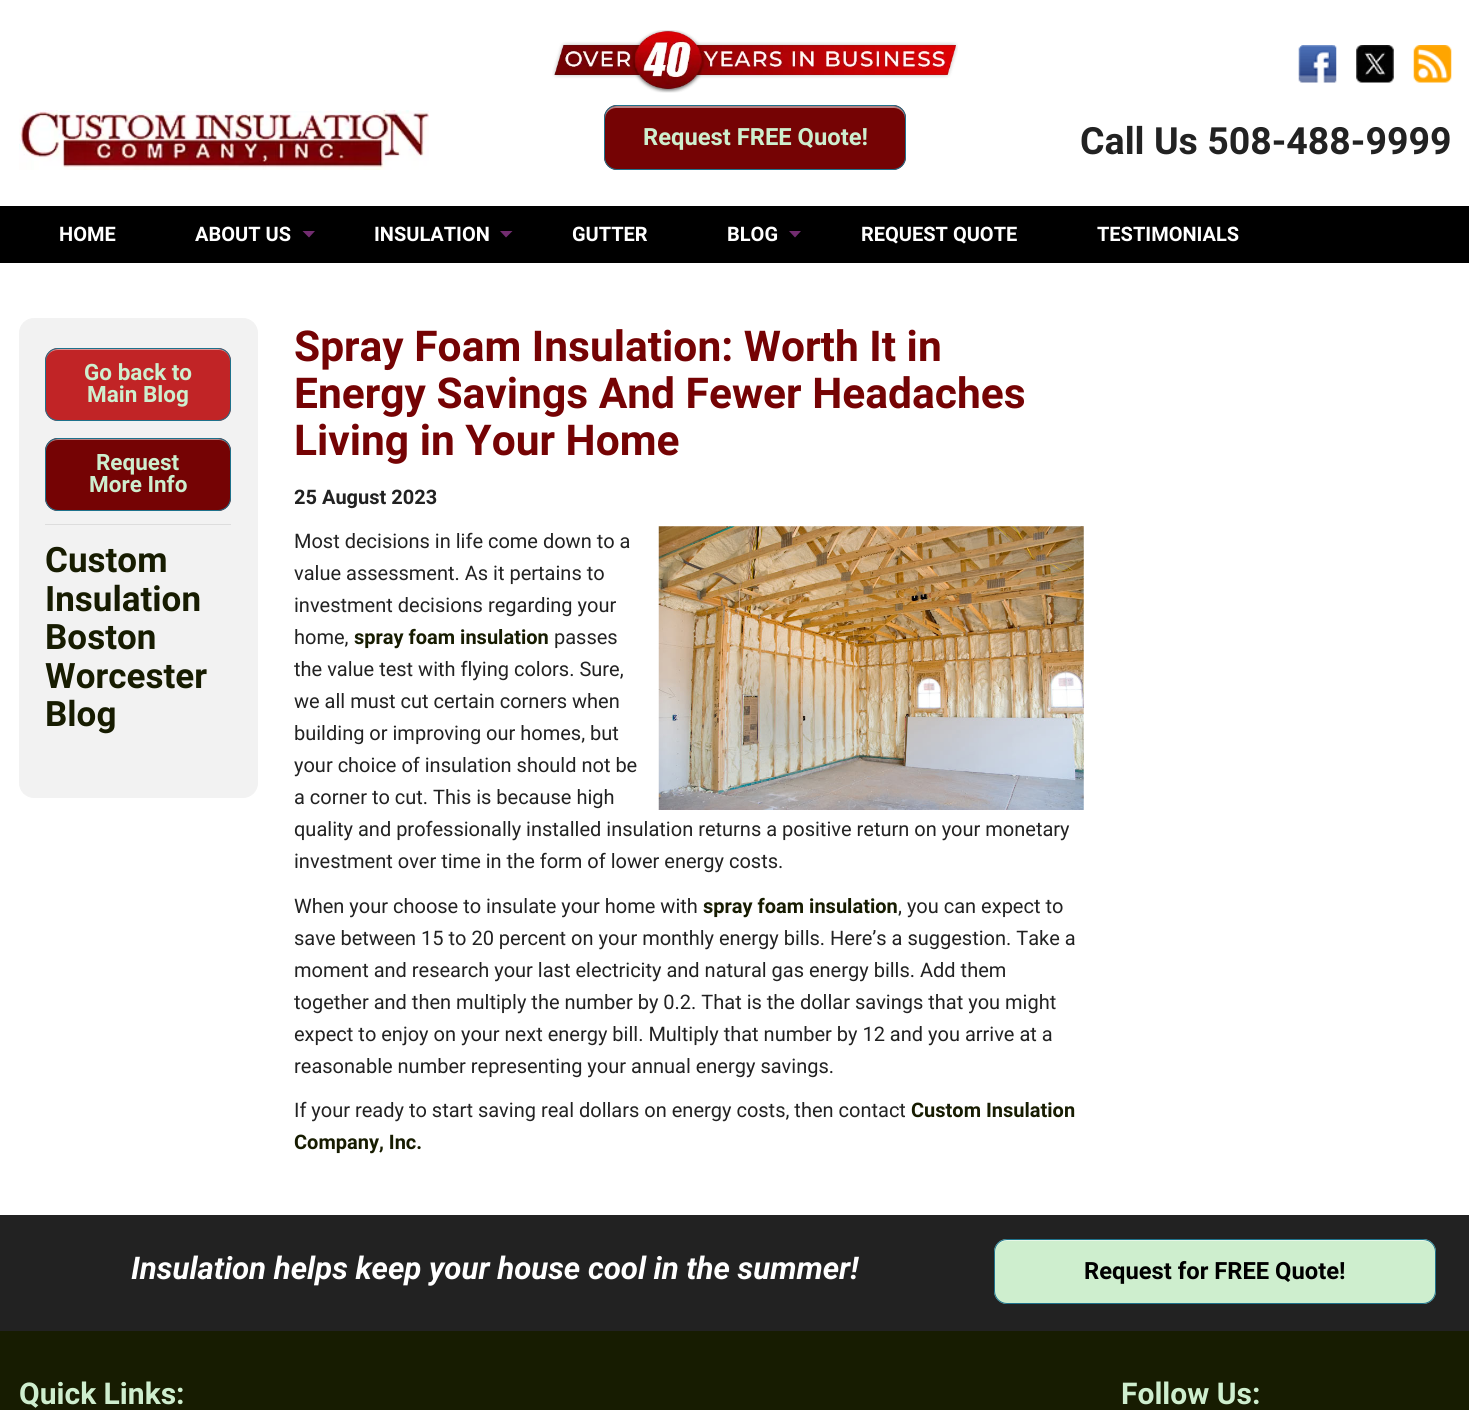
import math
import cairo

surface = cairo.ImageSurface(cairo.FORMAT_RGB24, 1469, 1410)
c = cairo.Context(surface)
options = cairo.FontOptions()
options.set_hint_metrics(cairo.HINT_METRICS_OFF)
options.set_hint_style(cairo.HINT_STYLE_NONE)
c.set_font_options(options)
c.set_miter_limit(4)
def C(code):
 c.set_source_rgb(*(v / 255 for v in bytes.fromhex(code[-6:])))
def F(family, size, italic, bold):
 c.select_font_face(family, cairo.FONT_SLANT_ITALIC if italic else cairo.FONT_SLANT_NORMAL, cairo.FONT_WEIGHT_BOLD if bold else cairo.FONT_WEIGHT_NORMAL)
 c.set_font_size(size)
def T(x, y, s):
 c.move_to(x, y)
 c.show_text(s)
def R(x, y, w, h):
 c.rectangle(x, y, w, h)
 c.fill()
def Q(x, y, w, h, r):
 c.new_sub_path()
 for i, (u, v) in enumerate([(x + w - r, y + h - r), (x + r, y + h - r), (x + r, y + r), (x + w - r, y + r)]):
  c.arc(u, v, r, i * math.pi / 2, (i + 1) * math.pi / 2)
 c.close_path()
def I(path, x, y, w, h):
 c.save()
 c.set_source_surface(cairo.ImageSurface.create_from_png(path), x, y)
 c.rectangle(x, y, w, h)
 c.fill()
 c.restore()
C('ffffff')
c.paint()
I('1.png',19,110,410,60)
I('2.png',552,30,406,63)
C('750304')
Q(604,105,302,65,13)
c.fill()
C('ba8182')
c.new_path()
c.move_to(616,108)
c.line_to(894,108)
c.curve_to(900,108,905,113,905,119)
c.line_to(905,117)
c.curve_to(905,111,900,106,894,106)
c.line_to(616,106)
c.curve_to(610,106,605,111,605,117)
c.line_to(605,119)
c.curve_to(605,113,610,108,616,108)
c.close_path()
c.fill()
Q(604.5,105.5,301,64,12.5)
C('1e728c')
c.set_line_width(1)
c.stroke()
F('Roboto',23.75,0,1)
C('ceeece')
T(643,145,'Request FREE Quote!')
I('3.png',1298,45,39,38)
I('4.png',1356,45,38,38)
I('5.png',1413,45,39,38)
F('Roboto',37.5,0,1)
C('222222')
T(1080,154,'Call Us 508-488-9999')
C('000000')
R(0,206,1469,57)
F('Roboto',20,0,1)
C('ffffff')
T(59,241,'HOME')
T(195,241,'ABOUT US')
C('722c70')
c.new_path()
c.move_to(302.5,231)
c.line_to(315,231)
c.line_to(309,237.5)
c.close_path()
c.fill()
C('ffffff')
T(374,241,'INSULATION')
C('722c70')
c.new_path()
c.move_to(500,231)
c.line_to(512.5,231)
c.line_to(506,237.5)
c.close_path()
c.fill()
C('ffffff')
T(572,241,'GUTTER')
T(727,241,'BLOG')
C('722c70')
c.new_path()
c.move_to(789,231)
c.line_to(801,231)
c.line_to(795,237.5)
c.close_path()
c.fill()
C('ffffff')
T(861,241,'REQUEST QUOTE')
T(1097,241,'TESTIMONIALS')
C('f2f2f2')
Q(19.5,318.5,238,479,14.5)
c.fill_preserve()
c.stroke()
C('c12426')
Q(45,348,186,73,13)
c.fill()
C('e09293')
c.new_path()
c.move_to(58,350)
c.line_to(219,350)
c.curve_to(225,350,230,355,230,361)
c.line_to(230,360)
c.curve_to(230,354,225,349,219,349)
c.line_to(57,349)
c.curve_to(51,349,46,354,46,360)
c.line_to(46,361)
c.curve_to(46,355,51,350,58,350)
c.close_path()
c.fill()
Q(45.5,348.5,185,72,12.5)
C('1e728c')
c.stroke()
F('Roboto',22.5,0,1)
C('ceeece')
T(84,380,'Go back to')
T(87,402,'Main Blog')
C('750304')
Q(45,438,186,73,13)
c.fill()
C('ba8182')
c.new_path()
c.move_to(58,440)
c.line_to(219,440)
c.curve_to(225,440,230,445,230,451)
c.line_to(230,450)
c.curve_to(230,444,225,439,219,439)
c.line_to(57,439)
c.curve_to(51,439,46,444,46,450)
c.line_to(46,451)
c.curve_to(46,445,51,440,58,440)
c.close_path()
c.fill()
Q(45.5,438.5,185,72,12.5)
C('1e728c')
c.stroke()
C('ceeece')
T(96,470,'Request')
T(89,492,'More Info')
C('dddddd')
R(45,524,186,1)
F('Roboto',35,0,1)
C('171c01')
T(45,572,'Custom')
T(45,611,'Insulation')
T(45,649,'Boston')
T(45,688,'Worcester')
T(45,726,'Blog')
F('Roboto',42.5,0,1)
C('750304')
T(294,361,'Spray Foam Insulation: Worth It in')
T(294,408,'Energy Savings And Fewer Headaches')
T(294,455,'Living in Your Home')
F('Roboto',20,0,1)
C('222222')
T(294,504,'25 August 2023')
I('6.png',658,526,426,284)
F('Roboto',20,0,0)
T(294,548,'Most decisions in life come down to a')
T(294,580,'value assessment. As it pertains to')
T(294,612,'investment decisions regarding your')
T(294,644,'home,')
F('Roboto',20,0,1)
C('171c01')
T(354,644,'spray foam insulation')
F('Roboto',20,0,0)
C('222222')
T(554,644,'passes')
T(294,676,'the value test with flying colors. Sure,')
T(294,708,'we all must cut certain corners when')
T(294,740,'building or improving our homes, but')
T(294,772,'your choice of insulation should not be')
T(294,804,'a corner to cut. This is because high')
T(294,836,'quality and professionally installed insulation returns a positive return on your monetary')
T(294,868,'investment over time in the form of lower energy costs.')
T(294,913,'When your choose to insulate your home with')
F('Roboto',20,0,1)
C('171c01')
T(703,913,'spray foam insulation')
F('Roboto',20,0,0)
C('222222')
T(898,913,', you can expect to')
T(294,945,'save between 15 to 20 percent on your monthly energy bills. Here’s a suggestion. Take a')
T(294,977,'moment and research your last electricity and natural gas energy bills. Add them')
T(294,1009,'together and then multiply the number by 0.2. That is the dollar savings that you might')
T(294,1041,'expect to enjoy on your next energy bill. Multiply that number by 12 and you arrive at a')
T(294,1073,'reasonable number representing your annual energy savings.')
T(294,1117,'If your ready to start saving real dollars on energy costs, then contact')
F('Roboto',20,0,1)
C('171c01')
T(911,1117,'Custom Insulation')
T(294,1149,'Company, Inc.')
C('222222')
R(0,1215,1469,116)
F('Roboto',31.25,1,1)
C('ffffff')
T(131,1279,'Insulation helps keep your house cool in the summer!')
C('ceeece')
Q(994,1239,442,65,13)
c.fill()
C('e7f7e7')
c.new_path()
c.move_to(1006,1241)
c.line_to(1424,1241)
c.curve_to(1430,1241,1435,1246,1435,1252)
c.line_to(1435,1251)
c.curve_to(1435,1245,1430,1240,1424,1240)
c.line_to(1006,1240)
c.curve_to(1000,1240,995,1245,995,1251)
c.line_to(995,1252)
c.curve_to(995,1246,1000,1241,1006,1241)
c.close_path()
c.fill()
Q(994.5,1239.5,441,64,12.5)
C('1e728c')
c.stroke()
F('Roboto',23.75,0,1)
C('000000')
T(1084,1279,'Request for FREE Quote!')
C('171c01')
R(0,1331,1469,79)
F('Roboto',30,0,1)
C('ceeece')
T(19,1404,'Quick Links:')
T(1121,1404,'Follow Us:')
surface.write_to_png('o.png')
